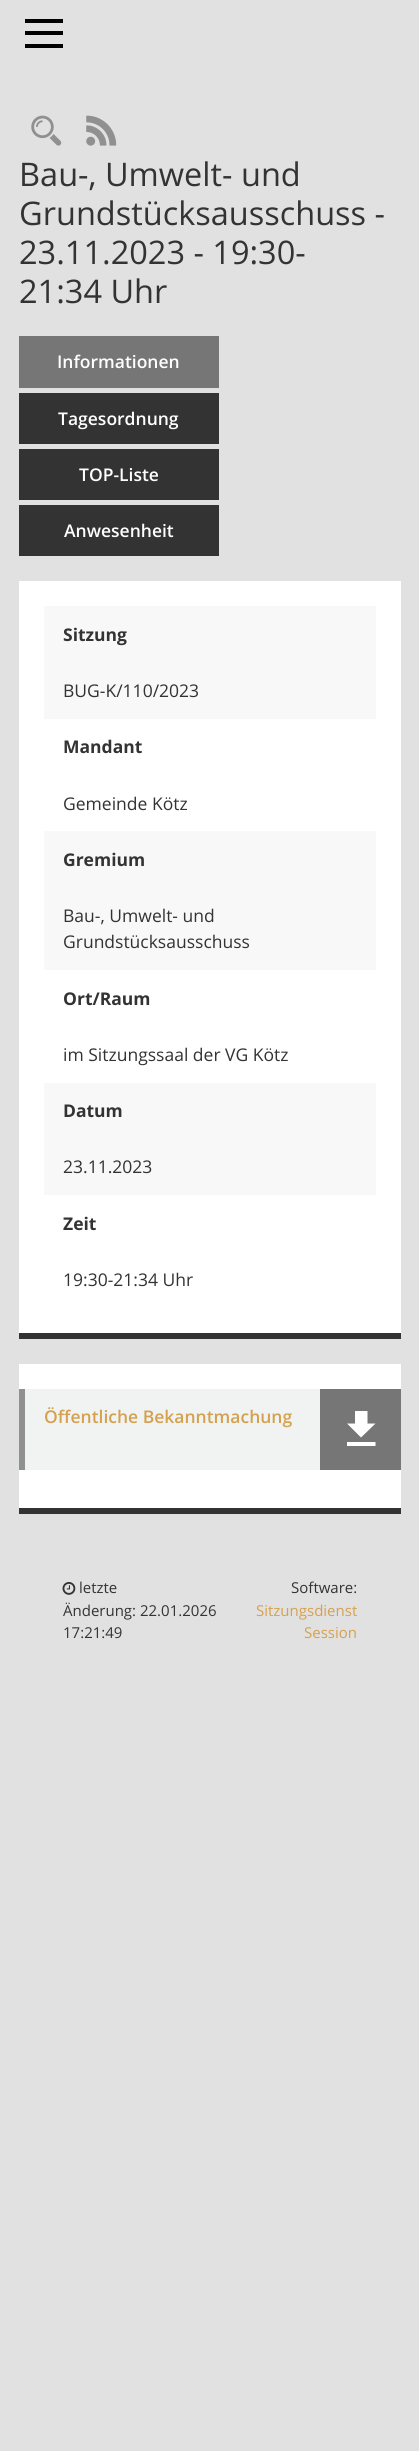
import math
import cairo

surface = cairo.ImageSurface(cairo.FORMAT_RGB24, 419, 2451)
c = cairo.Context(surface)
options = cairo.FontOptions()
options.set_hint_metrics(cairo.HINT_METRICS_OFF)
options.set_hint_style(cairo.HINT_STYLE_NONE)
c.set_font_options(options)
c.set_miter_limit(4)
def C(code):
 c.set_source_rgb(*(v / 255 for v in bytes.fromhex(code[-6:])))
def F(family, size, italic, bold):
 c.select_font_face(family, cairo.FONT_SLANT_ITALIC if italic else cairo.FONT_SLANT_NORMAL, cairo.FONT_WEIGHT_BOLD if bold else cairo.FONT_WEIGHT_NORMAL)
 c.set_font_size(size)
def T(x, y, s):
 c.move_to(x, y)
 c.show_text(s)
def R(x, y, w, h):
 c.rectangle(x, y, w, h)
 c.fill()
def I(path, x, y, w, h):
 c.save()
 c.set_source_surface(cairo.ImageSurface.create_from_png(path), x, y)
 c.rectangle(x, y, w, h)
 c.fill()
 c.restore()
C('e1e1e1')
c.paint()
C('000000')
R(25,19,38,4)
R(25,31,38,4)
R(25,44,38,4)
I('1.png',31,115,31,31)
I('2.png',86,115,31,31)
F('Open Sans',32.5,0,0)
C('333333')
T(19,186,'Bau-, Umwelt- und')
T(19,225,'Grundstücksausschuss -')
T(19,264,'23.11.2023 - 19:30-')
T(19,303,'21:34 Uhr')
C('dee2e6')
R(219,555,182,1)
C('767676')
R(19,336,200,52)
F('Open Sans SemiBold',17.5,0,0)
C('ffffff')
T(57,368,'Informationen')
C('333333')
R(19,393,200,51)
C('ffffff')
T(58,425,'Tagesordnung')
C('333333')
R(19,449,200,51)
C('ffffff')
T(79,481,'TOP-Liste')
C('333333')
R(19,505,200,51)
C('ffffff')
T(64,537,'Anwesenheit')
R(19,581,382,752)
C('333333')
R(19,1333,382,6)
C('f8f8f8')
R(44,606,332,113)
F('Open Sans',17.5,0,1)
C('333333')
T(63,641,'Sitzung')
F('Open Sans',17.5,0,0)
T(63,697,'BUG-K/110/2023')
F('Open Sans',17.5,0,1)
T(63,753,'Mandant')
F('Open Sans',17.5,0,0)
T(63,810,'Gemeinde Kötz')
C('f8f8f8')
R(44,831,332,139)
F('Open Sans',17.5,0,1)
C('333333')
T(63,866,'Gremium')
F('Open Sans',17.5,0,0)
T(63,922,'Bau-, Umwelt- und')
T(63,948,'Grundstücksausschuss')
F('Open Sans',17.5,0,1)
T(63,1005,'Ort/Raum')
F('Open Sans',17.5,0,0)
T(63,1061,'im Sitzungssaal der VG Kötz')
C('f8f8f8')
R(44,1083,332,112)
F('Open Sans',17.5,0,1)
C('333333')
T(63,1117,'Datum')
F('Open Sans',17.5,0,0)
T(63,1173,'23.11.2023')
F('Open Sans',17.5,0,1)
T(63,1230,'Zeit')
F('Open Sans',17.5,0,0)
T(63,1286,'19:30-21:34 Uhr')
C('ffffff')
R(19,1364,382,144)
C('333333')
R(19,1508,382,6)
C('f0f3f2')
R(25,1389,295,81)
C('909090')
R(19,1389,6,81)
F('Open Sans SemiBold',17.5,0,0)
C('d5a14f')
T(44,1423,'Öffentliche Bekanntmachung')
C('767676')
R(320,1389,81,81)
C('ffffff')
c.new_path()
c.move_to(375.5,1423.5)
c.line_to(367.5,1423.5)
c.line_to(367.5,1411)
c.line_to(355,1411)
c.line_to(355,1423.5)
c.line_to(347,1423.5)
c.line_to(361,1437.5)
c.close_path()
c.move_to(347,1442)
c.line_to(347,1446)
c.line_to(375.5,1446)
c.line_to(375.5,1442)
c.close_path()
c.fill()
I('3.png',62,1582,14,13)
F('Open Sans',15,0,0)
C('333333')
T(79,1593,'letzte')
T(63,1616,'Änderung: 22.01.2026')
T(63,1638,'17:21:49')
T(291,1593,'Software:')
C('d5a14f')
T(256,1616,'Sitzungsdienst')
T(304,1638,'Session')
surface.write_to_png('o.png')
